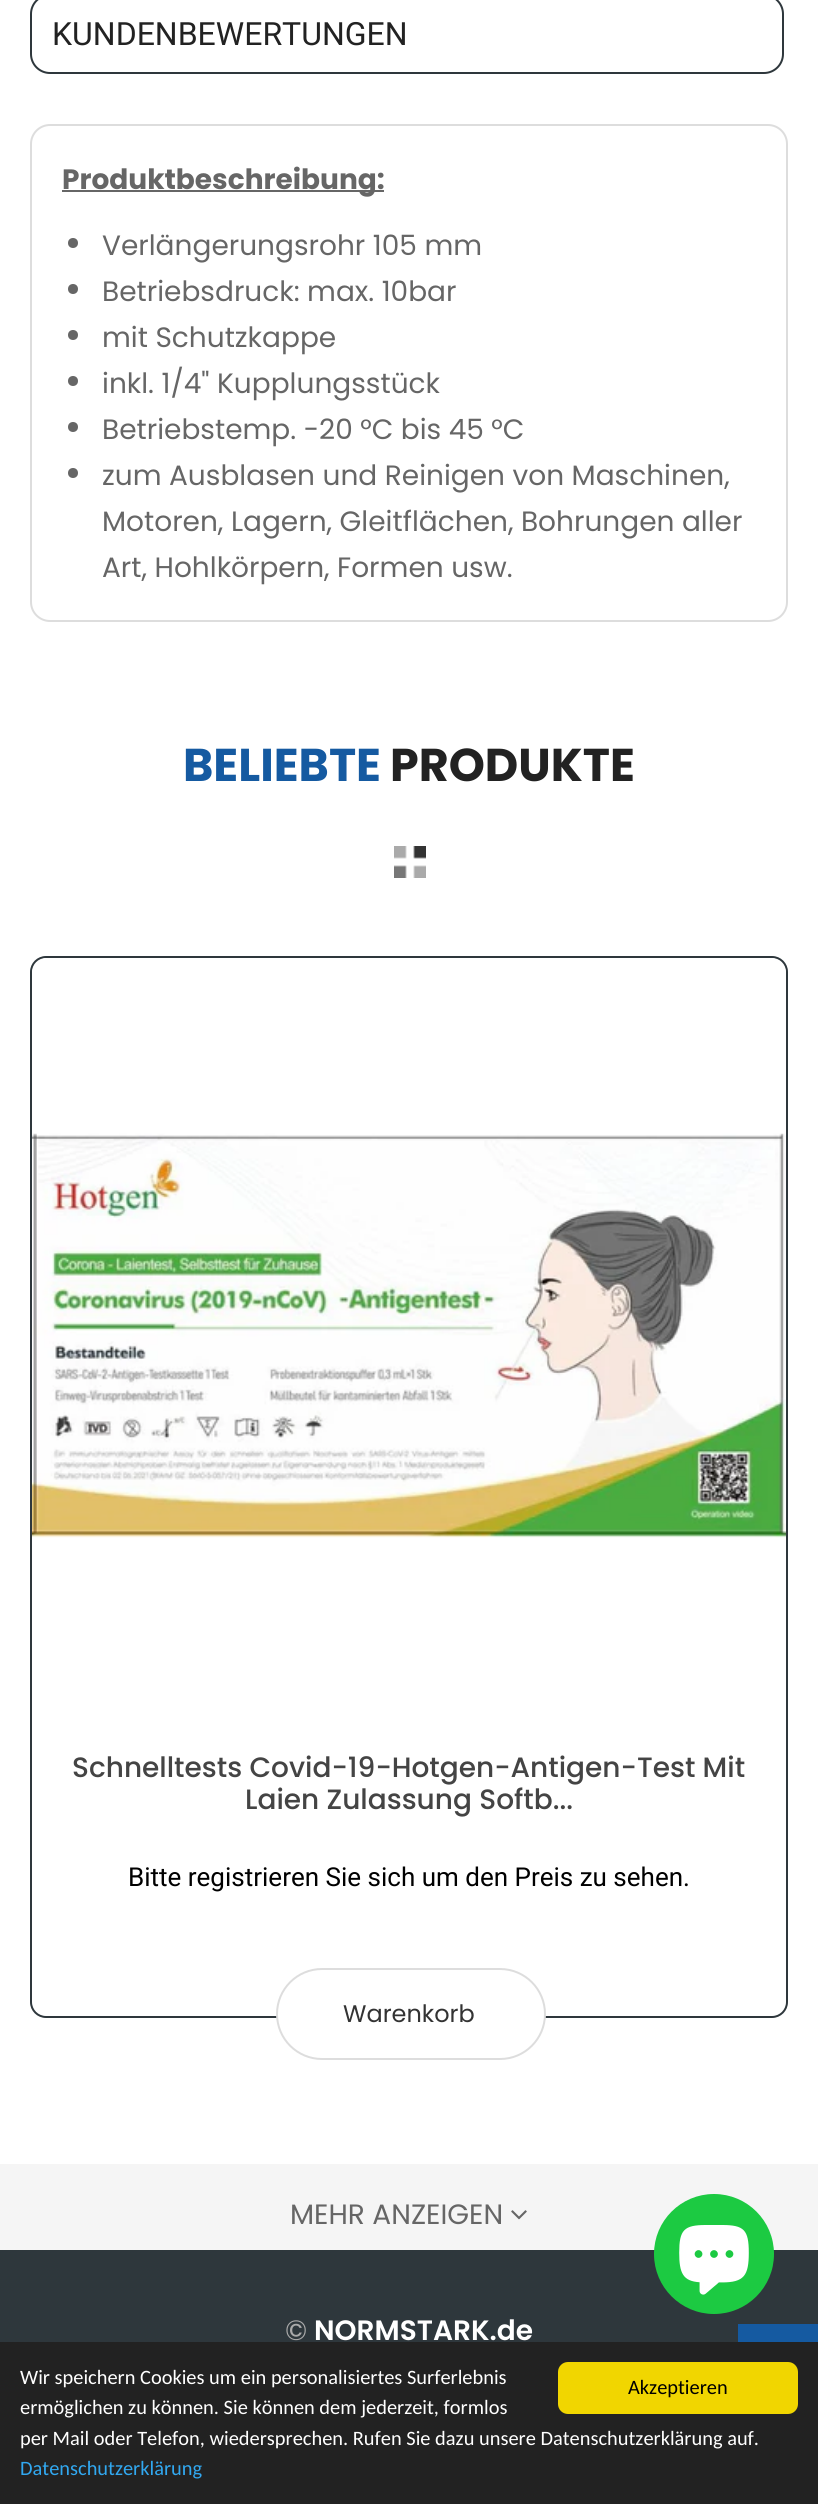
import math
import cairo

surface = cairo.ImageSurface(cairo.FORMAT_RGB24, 818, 2504)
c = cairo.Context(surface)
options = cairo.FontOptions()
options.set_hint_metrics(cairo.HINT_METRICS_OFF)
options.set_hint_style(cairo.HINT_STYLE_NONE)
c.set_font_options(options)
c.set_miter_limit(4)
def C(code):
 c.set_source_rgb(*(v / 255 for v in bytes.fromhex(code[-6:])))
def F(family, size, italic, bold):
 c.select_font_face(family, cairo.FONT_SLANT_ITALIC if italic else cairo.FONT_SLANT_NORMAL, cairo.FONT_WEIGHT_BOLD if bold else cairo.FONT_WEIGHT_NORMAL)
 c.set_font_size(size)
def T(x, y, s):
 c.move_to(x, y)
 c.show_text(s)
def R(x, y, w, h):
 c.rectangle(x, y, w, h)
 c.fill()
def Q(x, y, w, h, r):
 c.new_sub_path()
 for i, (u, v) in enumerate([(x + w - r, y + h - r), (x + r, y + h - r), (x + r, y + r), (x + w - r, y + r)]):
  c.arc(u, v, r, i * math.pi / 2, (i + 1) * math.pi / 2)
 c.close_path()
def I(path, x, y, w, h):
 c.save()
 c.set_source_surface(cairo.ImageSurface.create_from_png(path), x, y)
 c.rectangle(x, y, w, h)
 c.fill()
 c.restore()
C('ffffff')
c.paint()
Q(31,-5,752,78,19)
C('2e373c')
c.stroke()
F('Roboto',32,0,0)
C('222222')
T(52,45,'KUNDENBEWERTUNGEN')
Q(31,125,756,496,19)
C('dddddd')
c.stroke()
C('666666')
R(62,190,322,2)
F('Poppins',28,0,1)
T(62,189,'Produktbeschreibung:')
c.new_path()
c.arc(73,243,5,0,2 * math.pi)
c.fill()
F('Poppins',28,0,0)
T(102,255,'Verlängerungsrohr 105 mm')
c.new_path()
c.arc(73,289,5,0,2 * math.pi)
c.fill()
T(102,301,'Betriebsdruck: max. 10bar')
c.new_path()
c.arc(73,335,5,0,2 * math.pi)
c.fill()
T(102,347,'mit Schutzkappe')
c.new_path()
c.arc(73,381,5,0,2 * math.pi)
c.fill()
T(102,393,'inkl. 1/4" Kupplungsstück')
c.new_path()
c.arc(73,427,5,0,2 * math.pi)
c.fill()
T(102,439,'Betriebstemp. -20 °C bis 45 °C')
c.new_path()
c.arc(73,473,5,0,2 * math.pi)
c.fill()
T(102,485,'zum Ausblasen und Reinigen von Maschinen,')
T(102,531,'Motoren, Lagern, Gleitflächen, Bohrungen aller')
T(102,577,'Art, Hohlkörpern, Formen usw.')
I('1.png',394,846,32,32)
F('Poppins',46,0,1)
C('155aa1')
T(183,781,'BELIEBTE')
C('222222')
T(390,781,'PRODUKTE')
Q(31,957,756,1060,15)
C('2e373c')
c.stroke()
I('2.png',32,958,754,580)
F('Poppins Medium',28,0,0)
C('444444')
T(72,1777,'Schnelltests Covid-19-Hotgen-Antigen-Test Mit')
T(245,1809,'Laien Zulassung Softb...')
F('Roboto',26,0,0)
C('000000')
T(128,1886,'Bitte registrieren Sie sich um den Preis zu sehen.')
C('ffffff')
Q(277,1969,268,90,45)
c.fill_preserve()
C('dddddd')
c.stroke()
F('Poppins',24,0,0)
C('333333')
T(343,2022,'Warenkorb')
C('f5f5f5')
R(0,2164,818,86)
F('Poppins',28,0,0)
C('666666')
T(290,2224,'MEHR ANZEIGEN')
I('3.png',511,2210,16,10)
C('2e373c')
R(0,2250,818,92)
C('aaaaaa')
T(285,2340,'©')
F('Poppins SemiBold',28,0,0)
C('ffffff')
T(314,2340,'NORMSTARK.de')
C('155aa1')
R(738,2324,80,18)
C('1cca42')
c.new_path()
c.arc(714,2254,60,0,2 * math.pi)
c.fill()
I('4.png',679,2225,70,70)
C('222222')
R(0,2342,818,162)
F('Carlito',20.4,0,0)
C('ffffff')
T(20,2384,'Wir speichern Cookies um ein personalisiertes Surferlebnis')
T(20,2414,'ermöglichen zu können. Sie können dem jederzeit, formlos')
T(20,2445,'per Mail oder Telefon, wiedersprechen. Rufen Sie dazu unsere Datenschutzerklärung auf.')
C('31a8f0')
T(20,2475,'Datenschutzerklärung')
C('f1d600')
Q(558,2362,240,52,10)
c.fill()
C('000000')
T(628,2394,'Akzeptieren')
surface.write_to_png('o.png')
